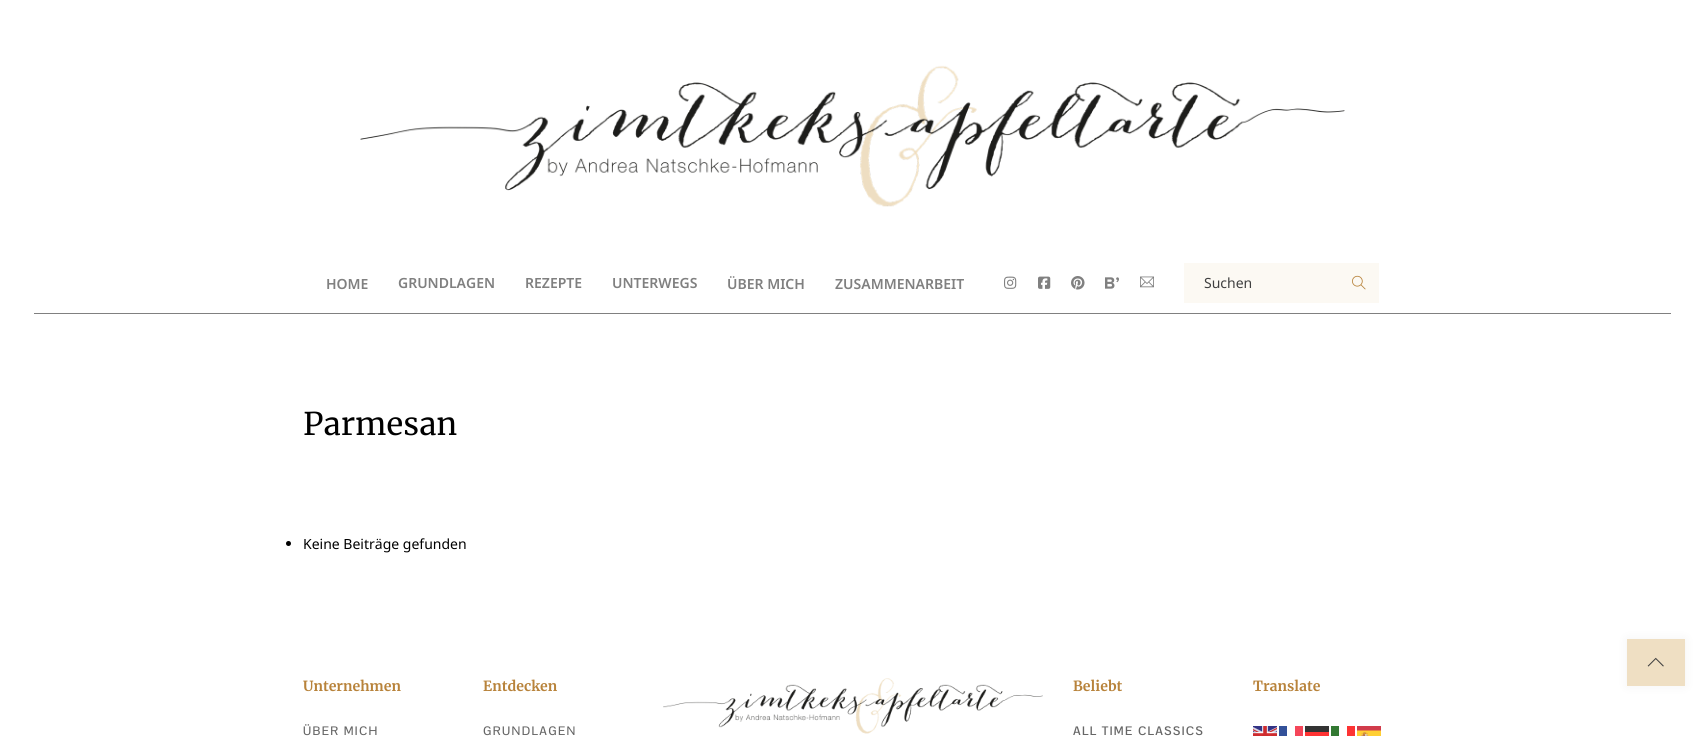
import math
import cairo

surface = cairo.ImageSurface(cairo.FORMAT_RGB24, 1705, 736)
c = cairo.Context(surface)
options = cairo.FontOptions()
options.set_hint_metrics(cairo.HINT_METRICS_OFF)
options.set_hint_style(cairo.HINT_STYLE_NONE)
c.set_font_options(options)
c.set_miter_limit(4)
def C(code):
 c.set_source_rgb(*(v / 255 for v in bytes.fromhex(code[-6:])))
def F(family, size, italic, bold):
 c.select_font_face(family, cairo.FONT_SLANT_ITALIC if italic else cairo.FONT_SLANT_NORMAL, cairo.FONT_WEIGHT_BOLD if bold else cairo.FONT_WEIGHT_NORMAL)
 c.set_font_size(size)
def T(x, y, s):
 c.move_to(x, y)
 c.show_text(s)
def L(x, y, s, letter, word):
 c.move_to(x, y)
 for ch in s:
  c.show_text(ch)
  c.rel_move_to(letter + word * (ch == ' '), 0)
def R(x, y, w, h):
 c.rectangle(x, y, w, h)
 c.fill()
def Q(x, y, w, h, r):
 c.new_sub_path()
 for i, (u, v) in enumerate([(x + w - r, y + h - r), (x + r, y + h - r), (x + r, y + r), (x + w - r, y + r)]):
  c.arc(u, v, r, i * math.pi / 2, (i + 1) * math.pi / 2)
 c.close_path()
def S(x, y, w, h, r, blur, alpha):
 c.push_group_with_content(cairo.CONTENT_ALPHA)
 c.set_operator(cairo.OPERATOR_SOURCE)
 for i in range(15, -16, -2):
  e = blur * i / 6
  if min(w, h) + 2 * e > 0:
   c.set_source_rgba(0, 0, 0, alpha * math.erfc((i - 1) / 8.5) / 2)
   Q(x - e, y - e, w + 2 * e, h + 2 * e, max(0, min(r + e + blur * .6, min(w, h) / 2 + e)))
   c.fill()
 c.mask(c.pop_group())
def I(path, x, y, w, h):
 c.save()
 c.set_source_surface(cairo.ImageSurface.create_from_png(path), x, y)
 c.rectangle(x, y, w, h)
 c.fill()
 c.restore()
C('ffffff')
c.paint()
I('1.png',360,65,985,142)
C('808080')
R(34,313,1637,1)
F('Noto Sans SemiBold',14,0,0)
T(326,289,'HOME')
T(398,288,'GRUNDLAGEN')
T(525,288,'REZEPTE')
T(612,288,'UNTERWEGS')
T(727,289,'ÜBER MICH')
T(835,289,'ZUSAMMENARBEIT')
I('2.png',1004,276,13,13)
I('3.png',1038,276,13,13)
I('4.png',1071,276,14,14)
I('5.png',1105,277,14,12)
I('6.png',1140,276,14,12)
C('fcf9f3')
R(1184,263,195,40)
F('Noto Sans',14,0,0)
C('404040')
T(1204,288,'Suchen')
I('7.png',1352,275,14,15)
C('d9d9d9')
S(1627,639,58,47,0,5,.3)
C('efdfc3')
R(1627,639,58,47)
I('8.png',1647,657,17,10)
F('Merriweather',31.25,0,0)
C('000000')
T(303,435,'Parmesan')
c.new_path()
c.arc(288.5,543.5,2.5,0,2 * math.pi)
c.fill()
F('Noto Sans',14,0,0)
T(303,549,'Keine Beiträge gefunden')
F('Merriweather',14,0,1)
C('b8833b')
T(303,691,'Unternehmen')
F('Pontano Sans SemiBold',12,0,0)
C('666666')
L(303,735,'ÜBER MICH',1.4,0)
F('Merriweather',14,0,1)
C('b8833b')
T(483,691,'Entdecken')
F('Pontano Sans SemiBold',12,0,0)
C('666666')
L(483,735,'GRUNDLAGEN',1.4,0)
I('9.png',663,678,380,56)
F('Merriweather',14,0,1)
C('b8833b')
T(1073,691,'Beliebt')
F('Pontano Sans',12,0,1)
C('666666')
L(1073,735,'ALL TIME CLASSICS',1.4,0)
F('Merriweather',14,0,1)
C('b8833b')
T(1253,691,'Translate')
I('10.png',1253,726,24,10)
C('335199')
R(1279,726,8,10)
C('f54659')
R(1295,726,8,10)
C('333333')
R(1305,726,24,6)
C('337933')
R(1331,726,8,10)
C('fd3333')
R(1347,726,8,10)
I('11.png',1357,726,24,10)
C('ff3333')
R(1305,732,24,4)
surface.write_to_png('o.png')
